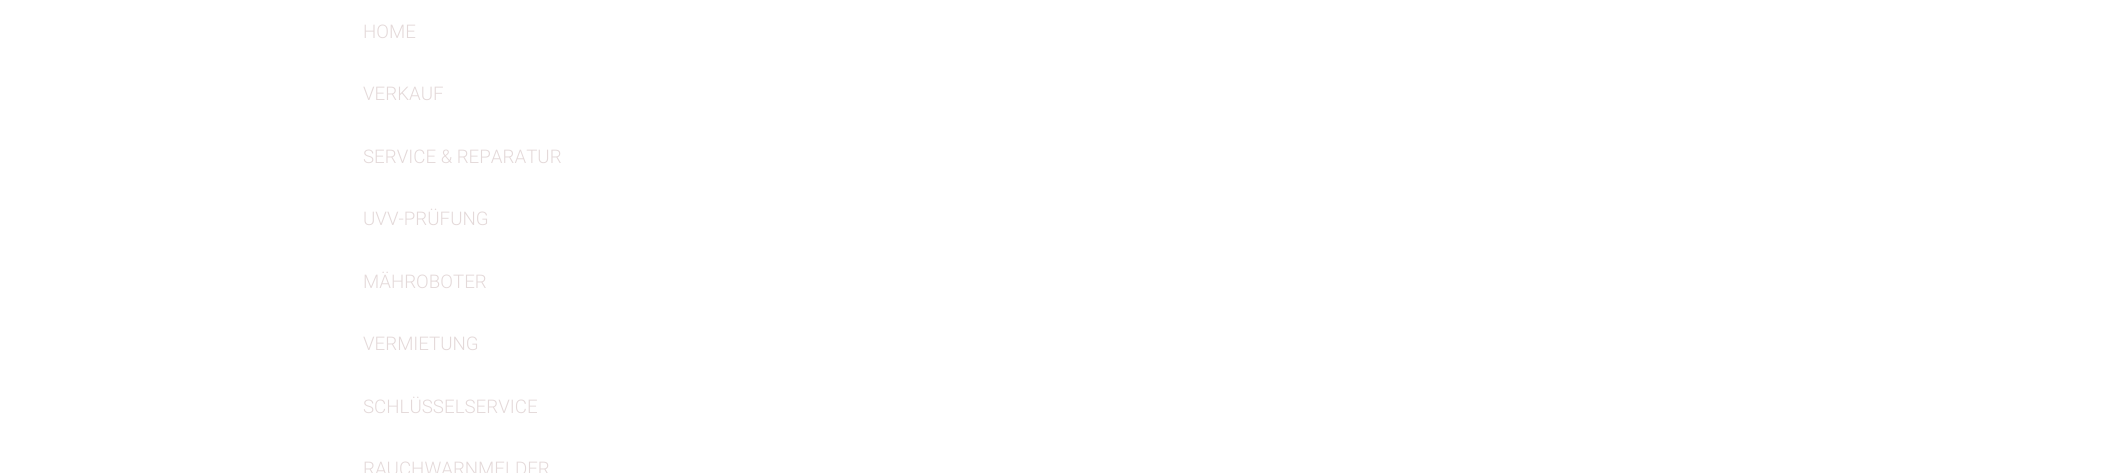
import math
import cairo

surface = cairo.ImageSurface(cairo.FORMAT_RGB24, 2113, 473)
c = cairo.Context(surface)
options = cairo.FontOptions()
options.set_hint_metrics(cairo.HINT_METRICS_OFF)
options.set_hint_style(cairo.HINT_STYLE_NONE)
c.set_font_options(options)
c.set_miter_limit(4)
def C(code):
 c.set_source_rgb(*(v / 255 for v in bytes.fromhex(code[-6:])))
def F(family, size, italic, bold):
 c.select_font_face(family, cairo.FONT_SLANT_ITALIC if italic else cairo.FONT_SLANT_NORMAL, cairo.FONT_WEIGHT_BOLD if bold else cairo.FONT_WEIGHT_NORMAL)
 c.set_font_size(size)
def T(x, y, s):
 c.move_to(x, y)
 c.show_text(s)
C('ffffff')
c.paint()
F('Roboto Light',18.75,0,0)
C('e4d9d9')
T(363,38,'HOME')
T(363,100,'VERKAUF')
T(363,163,'SERVICE & REPARATUR')
T(363,225,'UVV-PRÜFUNG')
T(363,288,'MÄHROBOTER')
T(363,350,'VERMIETUNG')
T(363,413,'SCHLÜSSELSERVICE')
T(363,475,'RAUCHWARNMELDER')
surface.write_to_png('o.png')
